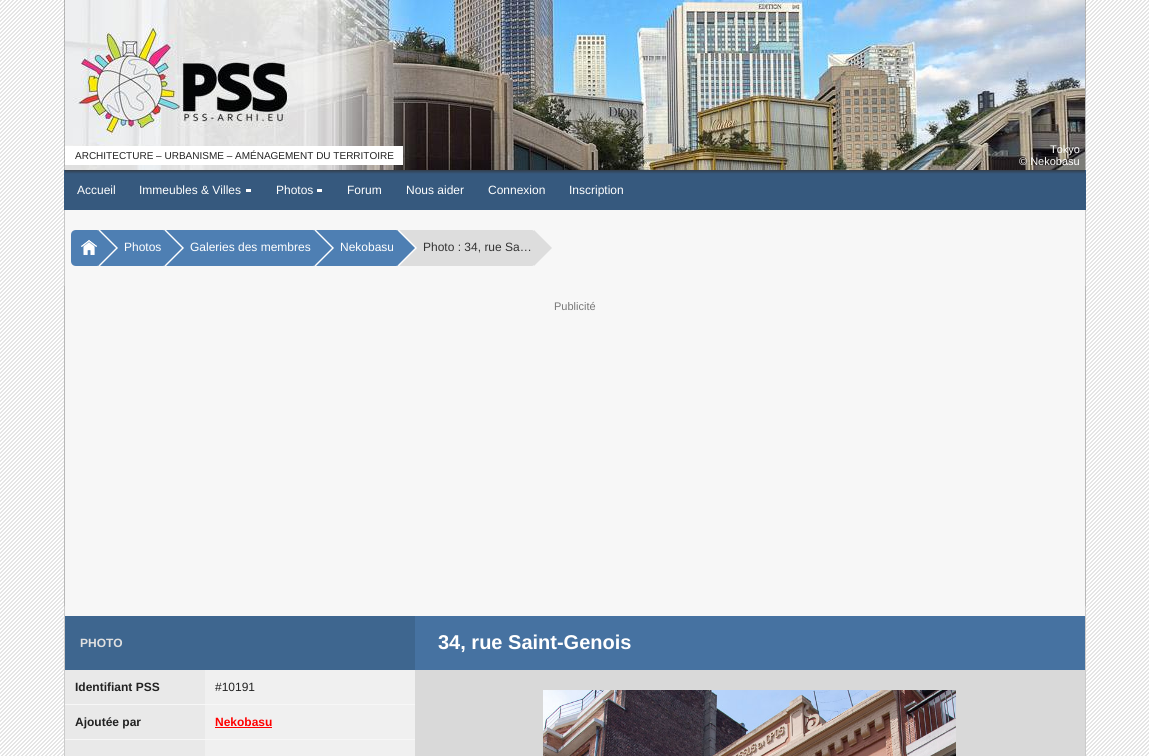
import math
import cairo

surface = cairo.ImageSurface(cairo.FORMAT_RGB24, 1149, 756)
c = cairo.Context(surface)
options = cairo.FontOptions()
options.set_hint_metrics(cairo.HINT_METRICS_OFF)
options.set_hint_style(cairo.HINT_STYLE_NONE)
c.set_font_options(options)
c.set_miter_limit(4)
def C(code):
 c.set_source_rgb(*(v / 255 for v in bytes.fromhex(code[-6:])))
def F(family, size, italic, bold):
 c.select_font_face(family, cairo.FONT_SLANT_ITALIC if italic else cairo.FONT_SLANT_NORMAL, cairo.FONT_WEIGHT_BOLD if bold else cairo.FONT_WEIGHT_NORMAL)
 c.set_font_size(size)
def T(x, y, s):
 c.move_to(x, y)
 c.show_text(s)
def R(x, y, w, h):
 c.rectangle(x, y, w, h)
 c.fill()
def I(path, x, y, w, h):
 c.save()
 c.set_source_surface(cairo.ImageSurface.create_from_png(path), x, y)
 c.rectangle(x, y, w, h)
 c.fill()
 c.restore()
C('ffffff')
c.paint()
I('1.png',0,0,1149,756)
c.set_source_rgba(0.471,0.471,0.471,0.5)
R(1085,0,1,170)
R(64,0,1,170)
I('2.png',65,0,1020,170)
C('ffffff')
R(65,146,338,19)
F('Liberation Sans',10,0,0)
C('222222')
T(75,159,'ARCHITECTURE – URBANISME – AMÉNAGEMENT DU TERRITOIRE')
F('Liberation Sans',11,0,0)
C('ffffff')
T(1050,153,'Tokyo')
T(1019,165,'© Nekobasu')
gradient = cairo.LinearGradient(575,170,575,209)
gradient.add_color_stop_rgba(0,0.196,0.239,0.29,1)
gradient.add_color_stop_rgba(.1,0.212,0.349,0.494,1)
c.set_source(gradient)
R(65,170,1020,39)
C('36597e')
R(1085,170,1,40)
R(64,209,1022,1)
R(64,170,1,40)
F('Liberation Sans',12,0,0)
C('ffffff')
T(77,194,'Accueil')
T(139,194,'Immeubles & Villes')
C('fefefe')
R(246,189,5,3)
C('ffffff')
T(276,194,'Photos')
C('fefefe')
R(317,189,5,3)
C('ffffff')
T(347,194,'Forum')
T(406,194,'Nous aider')
T(488,194,'Connexion')
T(569,194,'Inscription')
C('c7c7c7')
R(1085,210,1,76)
R(64,210,1,76)
C('f7f7f7')
R(65,210,1020,406)
C('4e7fb3')
c.new_path()
c.move_to(76,230)
c.line_to(97,230)
c.curve_to(98,230,99,231,99,232)
c.line_to(99,264)
c.curve_to(99,265,98,266,97,266)
c.line_to(76,266)
c.curve_to(73,266,71,264,71,261)
c.line_to(71,235)
c.curve_to(71,232,73,230,76,230)
c.close_path()
c.fill()
I('3.png',81,240,16,15)
c.new_path()
c.move_to(100,230)
c.line_to(163,230)
c.curve_to(164,230,165,231,165,232)
c.line_to(165,264)
c.curve_to(165,265,164,266,163,266)
c.line_to(100,266)
c.close_path()
c.fill()
C('ffffff')
c.new_path()
c.move_to(100,266)
c.line_to(100,230)
c.line_to(118,248)
c.close_path()
c.fill()
C('4e7fb3')
c.new_path()
c.move_to(98,266)
c.line_to(98,230)
c.line_to(116,248)
c.close_path()
c.fill()
C('ffffff')
T(124,251,'Photos')
C('4e7fb3')
c.new_path()
c.move_to(166,230)
c.line_to(313,230)
c.curve_to(314,230,315,231,315,232)
c.line_to(315,264)
c.curve_to(315,265,314,266,313,266)
c.line_to(166,266)
c.close_path()
c.fill()
C('ffffff')
c.new_path()
c.move_to(166,266)
c.line_to(166,230)
c.line_to(184,248)
c.close_path()
c.fill()
C('4e7fb3')
c.new_path()
c.move_to(164,266)
c.line_to(164,230)
c.line_to(182,248)
c.close_path()
c.fill()
C('ffffff')
T(190,251,'Galeries des membres')
C('4e7fb3')
c.new_path()
c.move_to(316,230)
c.line_to(396,230)
c.curve_to(397,230,398,231,398,232)
c.line_to(398,264)
c.curve_to(398,265,397,266,396,266)
c.line_to(316,266)
c.close_path()
c.fill()
C('ffffff')
c.new_path()
c.move_to(316,266)
c.line_to(316,230)
c.line_to(334,248)
c.close_path()
c.fill()
C('4e7fb3')
c.new_path()
c.move_to(314,266)
c.line_to(314,230)
c.line_to(332,248)
c.close_path()
c.fill()
C('ffffff')
T(340,251,'Nekobasu')
C('dddddd')
c.new_path()
c.move_to(399,230)
c.line_to(532,230)
c.curve_to(533.5,230,535,231.5,535,233)
c.line_to(535,263)
c.curve_to(535,264.5,533.5,266,532,266)
c.line_to(399,266)
c.close_path()
c.fill()
C('ffffff')
c.new_path()
c.move_to(399,266)
c.line_to(399,230)
c.line_to(417,248)
c.close_path()
c.fill()
C('4e7fb3')
c.new_path()
c.move_to(397,266)
c.line_to(397,230)
c.line_to(415,248)
c.close_path()
c.fill()
C('333333')
T(423,251,'Photo : 34, rue Sa…')
C('dddddd')
c.new_path()
c.move_to(534,266)
c.line_to(534,230)
c.line_to(552,248)
c.close_path()
c.fill()
C('b8b8b8')
R(1085,286,1,320)
R(64,286,1,320)
F('Liberation Sans',11,0,0)
C('777777')
T(554,310,'Publicité')
C('cbcbcb')
R(1085,606,1,150)
R(64,606,1,150)
C('3e668f')
R(65,616,350,54)
F('Liberation Sans',12,0,1)
C('e0e0e0')
T(80,647,'PHOTO')
C('4672a1')
R(415,616,670,54)
F('Liberation Sans',20,0,1)
C('ffffff')
T(438,649,'34, rue Saint-Genois')
C('e9e9e9')
R(65,670,140,34)
C('f7f7f7')
R(65,704,350,1)
F('Liberation Sans',12,0,1)
C('222222')
T(75,691,'Identifiant PSS')
C('f0f0f0')
R(205,670,210,34)
F('Liberation Sans',12,0,0)
C('222222')
T(215,691,'#10191')
C('e9e9e9')
R(65,705,140,34)
C('f7f7f7')
R(65,739,350,1)
F('Liberation Sans',12,0,1)
C('222222')
T(75,726,'Ajoutée par')
C('f0f0f0')
R(205,705,210,34)
C('ff0000')
T(215,726,'Nekobasu')
R(215,727,57,1)
C('e9e9e9')
R(65,740,140,16)
C('f0f0f0')
R(205,740,210,16)
C('d9d9d9')
R(415,670,670,86)
I('4.png',543,690,413,66)
surface.write_to_png('o.png')
